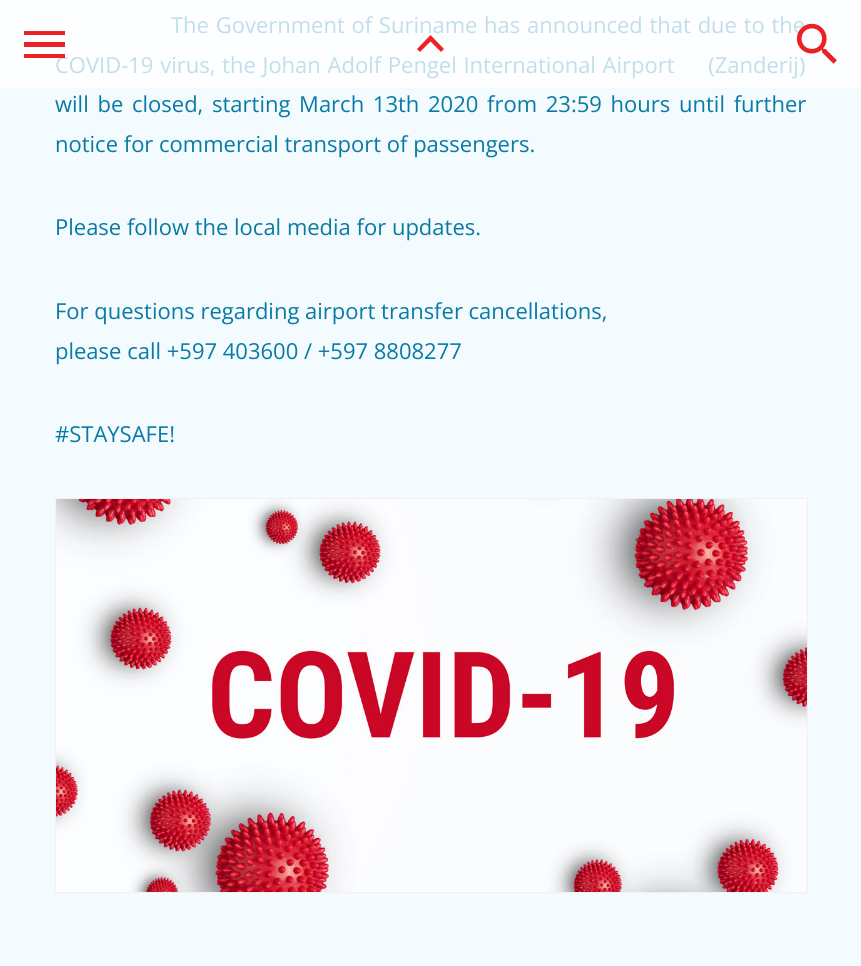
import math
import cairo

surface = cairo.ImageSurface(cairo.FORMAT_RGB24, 861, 966)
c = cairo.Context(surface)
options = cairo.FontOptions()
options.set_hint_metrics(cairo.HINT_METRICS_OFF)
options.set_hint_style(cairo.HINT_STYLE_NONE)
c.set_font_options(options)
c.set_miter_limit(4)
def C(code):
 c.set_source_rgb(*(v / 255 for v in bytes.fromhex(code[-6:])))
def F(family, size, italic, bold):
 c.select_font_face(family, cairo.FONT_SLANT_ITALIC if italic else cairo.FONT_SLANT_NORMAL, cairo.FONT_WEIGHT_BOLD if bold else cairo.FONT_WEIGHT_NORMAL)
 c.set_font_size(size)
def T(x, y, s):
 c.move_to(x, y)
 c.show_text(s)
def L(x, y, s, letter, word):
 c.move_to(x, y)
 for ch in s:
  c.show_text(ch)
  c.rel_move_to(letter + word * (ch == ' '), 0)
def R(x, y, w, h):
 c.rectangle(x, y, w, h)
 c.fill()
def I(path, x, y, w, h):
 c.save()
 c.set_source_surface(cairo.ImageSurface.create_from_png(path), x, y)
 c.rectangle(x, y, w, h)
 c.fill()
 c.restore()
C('f3fbfe')
c.paint()
C('fcfeff')
R(0,0,861,88)
F('Open Sans',22,0,0)
C('c1dee9')
L(171,33,'The Government of Suriname has announced that due to the',0,1)
L(55,73,'COVID-19 virus, the Johan Adolf Pengel International Airport     (Zanderij)',0,1)
C('087aa5')
L(55,112,'will be closed, starting March 13th 2020 from 23:59 hours until further',0,3)
T(55,152,'notice for commercial transport of passengers.')
T(55,235,'Please follow the local media for updates.')
T(55,319,'For questions regarding airport transfer cancellations,')
T(55,359,'please call +597 403600 / +597 8808277')
T(55,442,'#STAYSAFE!')
c.rectangle(55.5,498.5,752,394)
C('f1f1f1')
c.set_line_width(1)
c.stroke()
I('1.png',56,499,751,393)
C('ec2027')
c.new_path()
c.move_to(24,31)
c.line_to(65,31)
c.line_to(65,35)
c.line_to(24,35)
c.close_path()
c.move_to(24,42)
c.line_to(65,42)
c.line_to(65,47)
c.line_to(24,47)
c.close_path()
c.move_to(24,54)
c.line_to(65,54)
c.line_to(65,58)
c.line_to(24,58)
c.close_path()
c.fill()
C('ec2128')
c.new_path()
c.move_to(420,52)
c.line_to(430.5,41.5)
c.line_to(441,52)
c.line_to(444,49)
c.line_to(430.5,35)
c.line_to(417,49)
c.close_path()
c.fill()
I('2.png',796,23,41,41)
surface.write_to_png('o.png')
